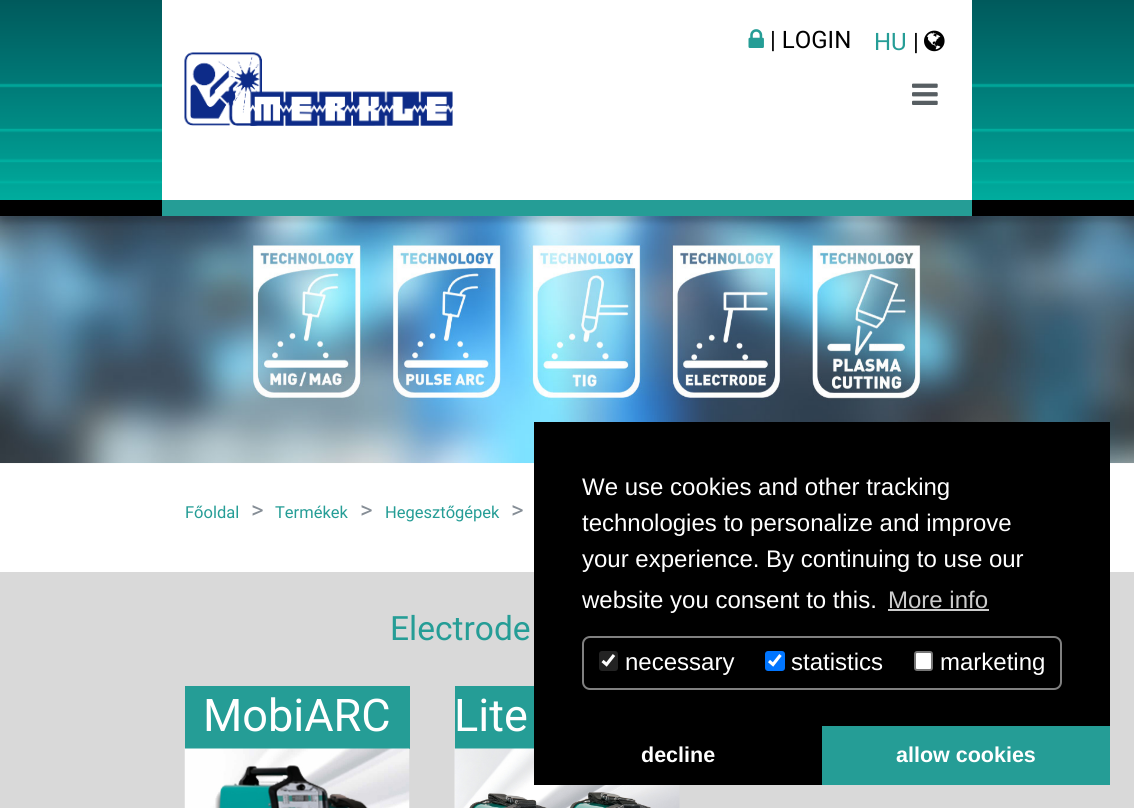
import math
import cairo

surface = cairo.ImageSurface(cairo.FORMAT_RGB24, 1134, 808)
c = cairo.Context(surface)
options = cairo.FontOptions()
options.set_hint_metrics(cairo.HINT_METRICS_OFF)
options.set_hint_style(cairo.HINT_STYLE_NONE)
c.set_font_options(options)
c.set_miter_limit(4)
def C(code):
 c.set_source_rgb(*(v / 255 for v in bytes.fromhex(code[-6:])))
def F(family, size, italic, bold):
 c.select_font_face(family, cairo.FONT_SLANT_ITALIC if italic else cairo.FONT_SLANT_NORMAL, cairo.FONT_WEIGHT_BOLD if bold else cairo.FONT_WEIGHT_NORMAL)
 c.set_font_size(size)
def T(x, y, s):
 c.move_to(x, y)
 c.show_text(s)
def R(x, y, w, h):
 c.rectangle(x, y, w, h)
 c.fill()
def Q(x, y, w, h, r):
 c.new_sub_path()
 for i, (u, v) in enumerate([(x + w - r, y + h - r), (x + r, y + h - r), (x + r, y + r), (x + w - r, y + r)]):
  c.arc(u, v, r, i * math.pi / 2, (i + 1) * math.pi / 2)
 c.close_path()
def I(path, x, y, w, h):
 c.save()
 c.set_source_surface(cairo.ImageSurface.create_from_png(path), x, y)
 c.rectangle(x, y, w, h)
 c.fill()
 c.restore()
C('ffffff')
c.paint()
I('1.png',0,0,1134,200)
C('000000')
R(0,200,1134,16)
C('ffffff')
R(162,0,810,200)
C('259d96')
R(162,200,810,16)
I('2.png',748,29,16,19)
F('Roboto',24,0,0)
C('000000')
T(770,48,'| LOGIN')
C('259d96')
T(874,50,'HU')
C('000000')
T(913,50,'|')
I('3.png',924,30,21,22)
I('4.png',912,83,26,22)
I('5.png',184,52,269,74)
I('6.png',0,216,1134,248)
F('Roboto',16.5,0,0)
C('259d96')
T(185,518,'Főoldal')
F('Roboto',24,0,0)
C('868e96')
T(251,518,'>')
F('Roboto',16.5,0,0)
C('259d96')
T(275,518,'Termékek')
F('Roboto',24,0,0)
C('868e96')
T(360,518,'>')
F('Roboto',16.5,0,0)
C('259d96')
T(385,518,'Hegesztőgépek')
F('Roboto',24,0,0)
C('868e96')
T(511,518,'>')
C('d9d9d9')
R(0,572,1134,236)
F('Roboto',33.5,0,0)
C('259d96')
T(390,640,'Electrode')
R(185,686,225,63)
F('Roboto',45,0,0)
C('ffffff')
T(203,731,'MobiARC')
I('7.png',184,748,226,60)
C('259d96')
R(455,686,79,63)
C('ffffff')
T(454,731,'Lite')
I('8.png',454,748,226,60)
C('000000')
R(534,422,576,363)
F('Liberation Sans',24,0,0)
C('ffffff')
T(582,495,'We use cookies and other tracking')
T(582,531,'technologies to personalize and improve')
T(582,567,'your experience. By continuing to use our')
T(582,608,'website you consent to this.')
C('cccccc')
T(888,608,'More info')
R(888,609,101,2)
Q(583,637,478,52,7)
C('808080')
c.stroke()
C('232323')
Q(599,651,19,20,3)
c.fill()
c.new_path()
c.move_to(602.5,661)
c.line_to(606.5,664.5)
c.line_to(614,655)
C('ffffff')
c.set_line_width(3.1)
c.stroke()
T(625,670,'necessary')
C('0075ff')
Q(765,651,20,20,3)
c.fill()
c.new_path()
c.move_to(769,661)
c.line_to(773,664.5)
c.line_to(780.5,655)
C('ffffff')
c.stroke()
T(791,670,'statistics')
Q(915,652,17,18,2)
c.fill_preserve()
C('767676')
c.set_line_width(2)
c.stroke()
C('ffffff')
T(940,670,'marketing')
F('Liberation Sans',21.5,0,1)
T(641,762,'decline')
C('259d96')
R(822,726,288,59)
C('ffffff')
T(896,762,'allow cookies')
surface.write_to_png('o.png')
